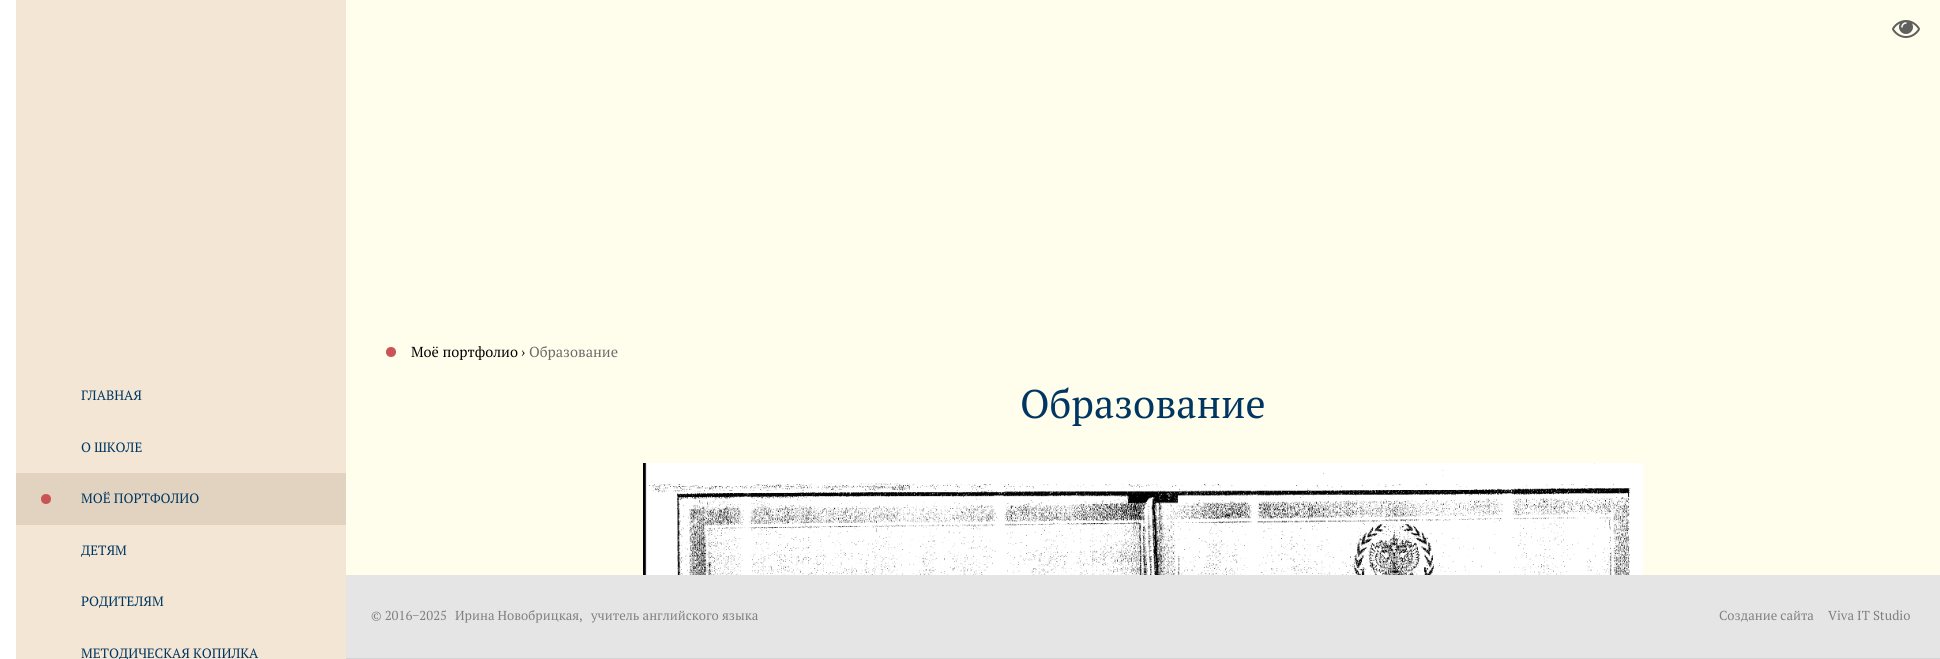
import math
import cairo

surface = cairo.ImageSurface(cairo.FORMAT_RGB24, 1940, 659)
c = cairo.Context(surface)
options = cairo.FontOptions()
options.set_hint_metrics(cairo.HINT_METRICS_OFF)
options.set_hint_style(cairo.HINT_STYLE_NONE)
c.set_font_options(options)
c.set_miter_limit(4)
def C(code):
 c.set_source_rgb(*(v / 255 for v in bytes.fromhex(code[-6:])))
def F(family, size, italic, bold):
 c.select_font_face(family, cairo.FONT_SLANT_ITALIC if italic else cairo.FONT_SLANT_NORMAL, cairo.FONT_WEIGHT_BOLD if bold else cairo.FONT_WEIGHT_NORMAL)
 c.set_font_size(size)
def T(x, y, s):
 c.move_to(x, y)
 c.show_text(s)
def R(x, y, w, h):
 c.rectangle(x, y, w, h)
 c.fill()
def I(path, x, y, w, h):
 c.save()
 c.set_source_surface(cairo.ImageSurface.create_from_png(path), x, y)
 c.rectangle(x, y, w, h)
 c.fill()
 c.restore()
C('fffeec')
c.paint()
C('f3e6d5')
R(16,0,330,659)
C('ffffff')
R(0,0,16,659)
F('PT Serif',13.5,0,0)
C('003661')
T(81,400,'ГЛАВНАЯ')
T(81,452,'О ШКОЛЕ')
C('e2d3c0')
R(16,473,330,52)
C('ca5455')
c.new_path()
c.arc(46,499,5,0,2 * math.pi)
c.fill()
C('003661')
T(81,503,'МОЁ ПОРТФОЛИО')
T(81,555,'ДЕТЯМ')
T(81,606,'РОДИТЕЛЯМ')
T(81,658,'МЕТОДИЧЕСКАЯ КОПИЛКА')
I('1.png',1892,20,28,18)
C('ca5455')
c.arc(391,352,5,0,2 * math.pi)
c.fill()
F('PT Serif',14.5,0,0)
C('000000')
T(411,357,'Моё портфолио')
T(521,357,'›')
C('6e6a6a')
T(529,357,'Образование')
F('PT Serif',40,0,0)
C('003661')
T(1020,418,'Образование')
I('2.png',643,463,1000,112)
C('e5e5e5')
R(346,575,1594,83)
C('d4d4d4')
R(346,658,1594,1)
F('PT Serif',13,0,0)
C('808080')
T(371,620,'© 2016−2025')
T(455,620,'Ирина Новобрицкая,')
T(591,620,'учитель английского языка')
T(1719,620,'Создание сайта')
T(1828,620,'Viva IT Studio')
surface.write_to_png('o.png')
